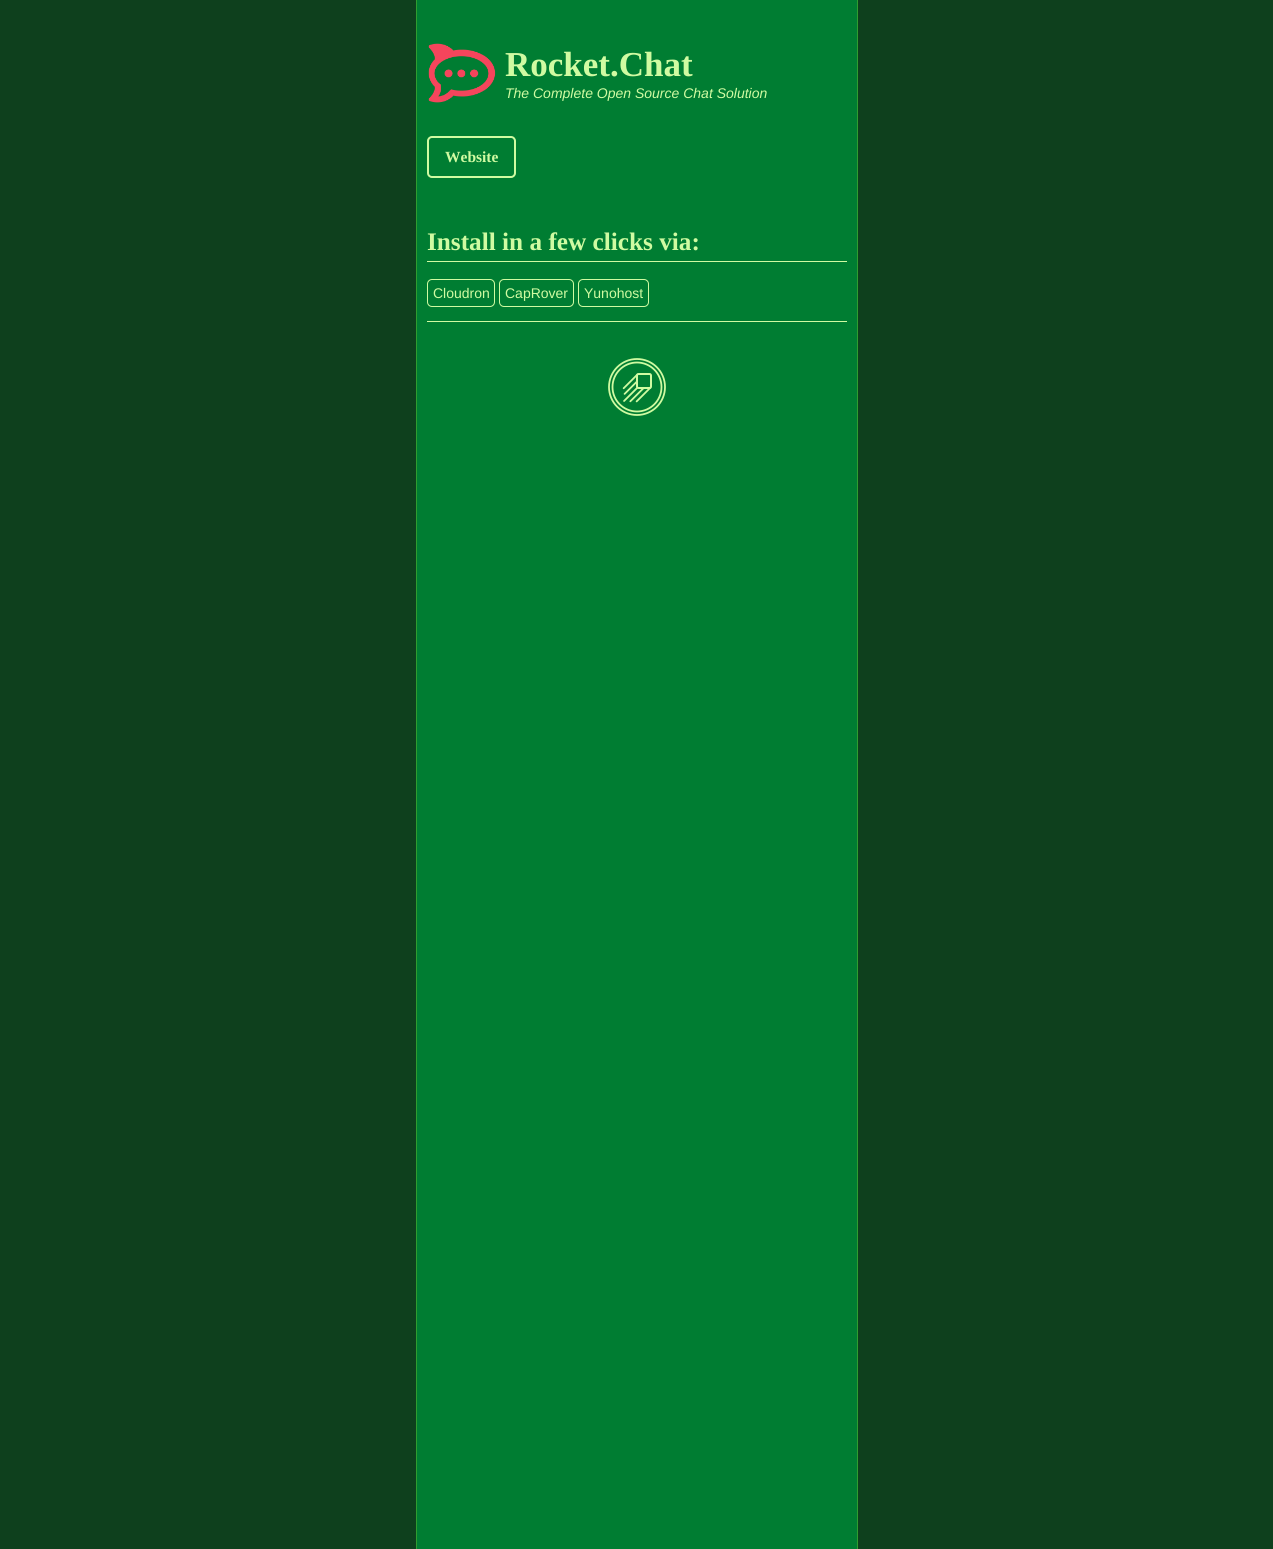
import math
import cairo

surface = cairo.ImageSurface(cairo.FORMAT_RGB24, 1273, 1549)
c = cairo.Context(surface)
options = cairo.FontOptions()
options.set_hint_metrics(cairo.HINT_METRICS_OFF)
options.set_hint_style(cairo.HINT_STYLE_NONE)
c.set_font_options(options)
c.set_miter_limit(4)
def C(code):
 c.set_source_rgb(*(v / 255 for v in bytes.fromhex(code[-6:])))
def F(family, size, italic, bold):
 c.select_font_face(family, cairo.FONT_SLANT_ITALIC if italic else cairo.FONT_SLANT_NORMAL, cairo.FONT_WEIGHT_BOLD if bold else cairo.FONT_WEIGHT_NORMAL)
 c.set_font_size(size)
def T(x, y, s):
 c.move_to(x, y)
 c.show_text(s)
def R(x, y, w, h):
 c.rectangle(x, y, w, h)
 c.fill()
def Q(x, y, w, h, r):
 c.new_sub_path()
 for i, (u, v) in enumerate([(x + w - r, y + h - r), (x + r, y + h - r), (x + r, y + r), (x + w - r, y + r)]):
  c.arc(u, v, r, i * math.pi / 2, (i + 1) * math.pi / 2)
 c.close_path()
def I(path, x, y, w, h):
 c.save()
 c.set_source_surface(cairo.ImageSurface.create_from_png(path), x, y)
 c.rectangle(x, y, w, h)
 c.fill()
 c.restore()
C('0e401d')
c.paint()
C('007d32')
R(417,0,440,1549)
C('309d30')
R(857,0,1,1549)
R(416,0,1,1549)
I('1.png',428,43,68,60)
F('Liberation Serif',35,0,1)
C('d0fba2')
T(505,76,'Rocket.Chat')
F('Liberation Sans',14,1,0)
T(505,98,'The Complete Open Source Chat Solution')
Q(428,137,87,40,4)
c.stroke()
F('Liberation Serif',15.5,0,1)
T(445,162,'Website')
R(427,261,420,1)
F('Liberation Serif',25.25,0,1)
T(427,250,'Install in a few clicks via:')
Q(427.5,279.5,67,27,4.5)
c.set_line_width(1)
c.stroke()
F('Liberation Sans',14,0,0)
T(433,298,'Cloudron')
Q(499.5,279.5,74,27,4.5)
c.stroke()
T(505,298,'CapRover')
Q(578.5,279.5,70,27,4.5)
c.stroke()
T(584,298,'Yunohost')
R(427,321,420,1)
I('2.png',608,358,58,58)
surface.write_to_png('o.png')
